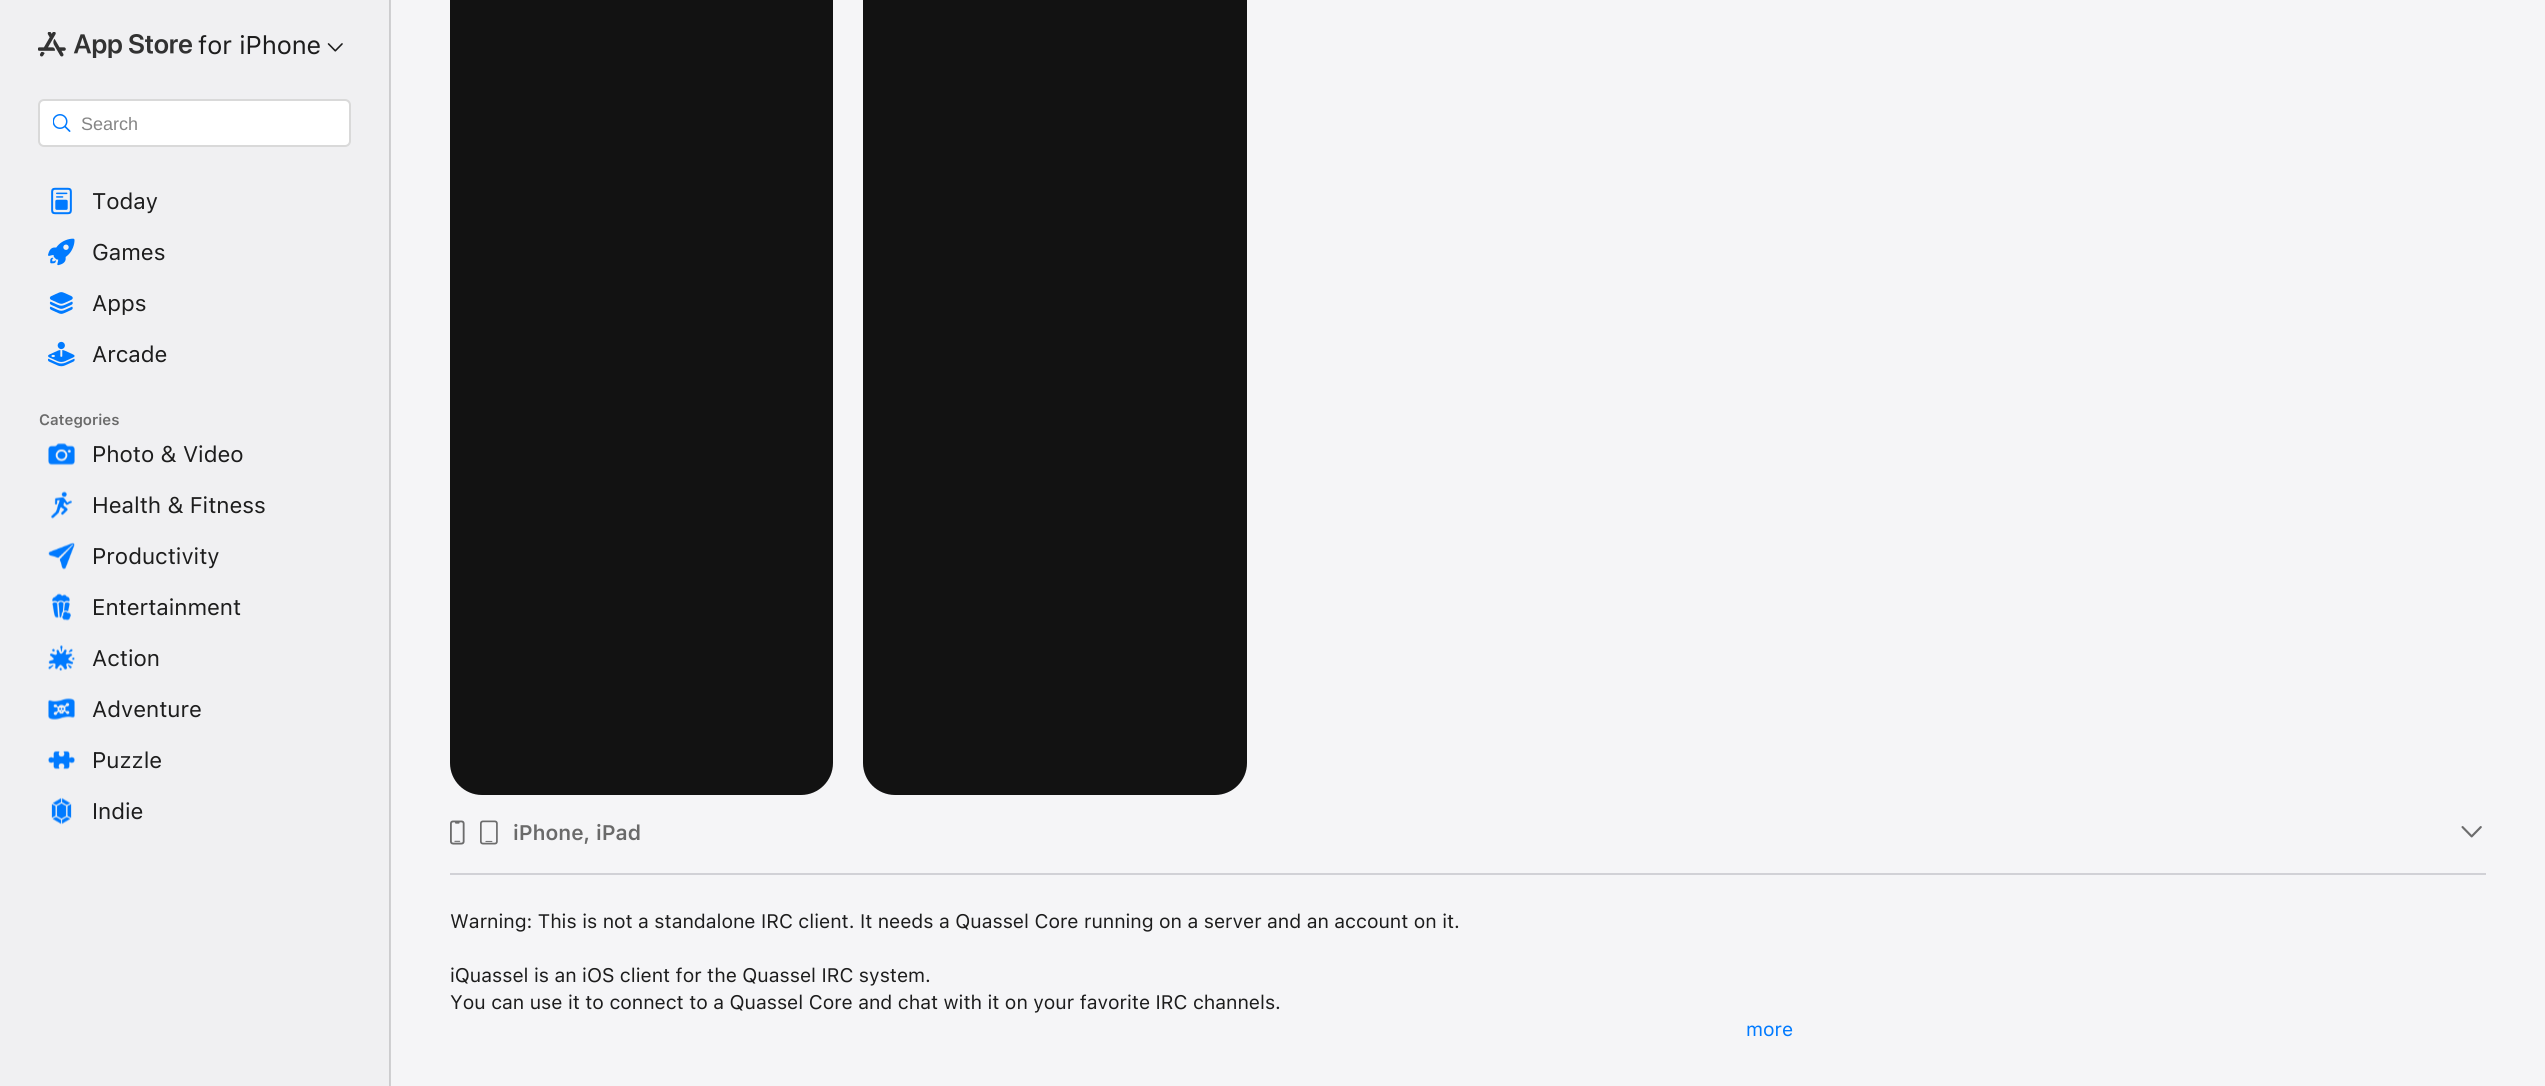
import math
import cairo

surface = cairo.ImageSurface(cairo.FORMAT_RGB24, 2545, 1086)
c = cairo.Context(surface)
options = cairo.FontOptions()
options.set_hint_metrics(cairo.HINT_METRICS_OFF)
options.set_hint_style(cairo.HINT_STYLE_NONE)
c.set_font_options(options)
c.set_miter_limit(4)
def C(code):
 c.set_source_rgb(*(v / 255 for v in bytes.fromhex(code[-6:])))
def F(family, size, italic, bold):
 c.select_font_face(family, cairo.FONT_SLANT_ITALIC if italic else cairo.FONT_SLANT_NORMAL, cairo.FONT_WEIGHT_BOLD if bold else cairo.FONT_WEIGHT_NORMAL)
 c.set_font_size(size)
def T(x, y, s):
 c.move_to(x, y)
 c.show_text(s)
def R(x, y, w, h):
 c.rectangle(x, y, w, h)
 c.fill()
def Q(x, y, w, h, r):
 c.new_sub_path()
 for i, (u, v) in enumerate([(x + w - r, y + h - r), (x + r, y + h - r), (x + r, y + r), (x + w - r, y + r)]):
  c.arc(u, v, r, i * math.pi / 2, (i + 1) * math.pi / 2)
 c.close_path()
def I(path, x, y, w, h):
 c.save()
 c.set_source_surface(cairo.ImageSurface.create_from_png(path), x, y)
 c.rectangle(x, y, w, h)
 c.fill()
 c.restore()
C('f5f5f7')
c.paint()
C('d0d0d2')
R(390,0,1,1086)
C('f0f0f2')
R(0,0,389,1086)
C('ccccce')
R(389,0,1,1086)
I('1.png',38,32,154,26)
F('SF',25.5,0,0)
C('1d1d1d')
T(198,54,'for iPhone')
I('2.png',327,43,16,9)
C('ffffff')
Q(38,99,313,48,6)
c.fill()
Q(39,100,311,46,5)
c.set_source_rgba(0,0,0,0.15)
c.stroke()
I('3.png',53,114,18,18)
F('Liberation Sans',18,0,0)
C('858585')
T(81,130,'Search')
I('4.png',51,187,21,28)
F('SF',22.5,0,0)
C('1d1d1d')
T(92,209,'Today')
I('5.png',48,238,27,28)
T(92,260,'Games')
I('6.png',49,292,24,22)
T(92,311,'Apps')
I('7.png',48,341,27,26)
T(92,362,'Arcade')
F('SF SemiBold',15,0,0)
C('6a6a6a')
T(39,425,'Categories')
I('8.png',48,443,27,23)
F('SF',22.5,0,0)
C('1d1d1d')
T(92,462,'Photo & Video')
I('9.png',51,491,21,28)
T(92,513,'Health & Fitness')
I('10.png',48,542,27,28)
T(92,564,'Productivity')
I('11.png',52,593,19,28)
T(92,615,'Entertainment')
I('12.png',48,645,27,26)
T(92,666,'Action')
I('13.png',48,698,27,22)
T(92,717,'Adventure')
I('14.png',48,750,27,20)
T(92,768,'Puzzle')
I('15.png',51,797,21,28)
T(92,819,'Indie')
C('121212')
Q(450,-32,383,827,32)
c.fill()
Q(863,-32,384,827,32)
c.fill()
I('16.png',450,820,15,25)
I('17.png',480,820,18,25)
F('SF SemiBold',21,0,0)
C('6a6a6a')
T(513,840,'iPhone, iPad')
I('18.png',2461,826,21,12)
C('d1d1d6')
R(450,873,2036,2)
F('SF',19.5,0,0)
C('1d1d1d')
T(450,928,'Warning: This is not a standalone IRC client. It needs a Quassel Core running on a server and an account on it.')
T(450,982,'iQuassel is an iOS client for the Quassel IRC system.')
T(450,1009,'You can use it to connect to a Quassel Core and chat with it on your favorite IRC channels.')
C('007aff')
T(1746,1036,'more')
surface.write_to_png('o.png')
